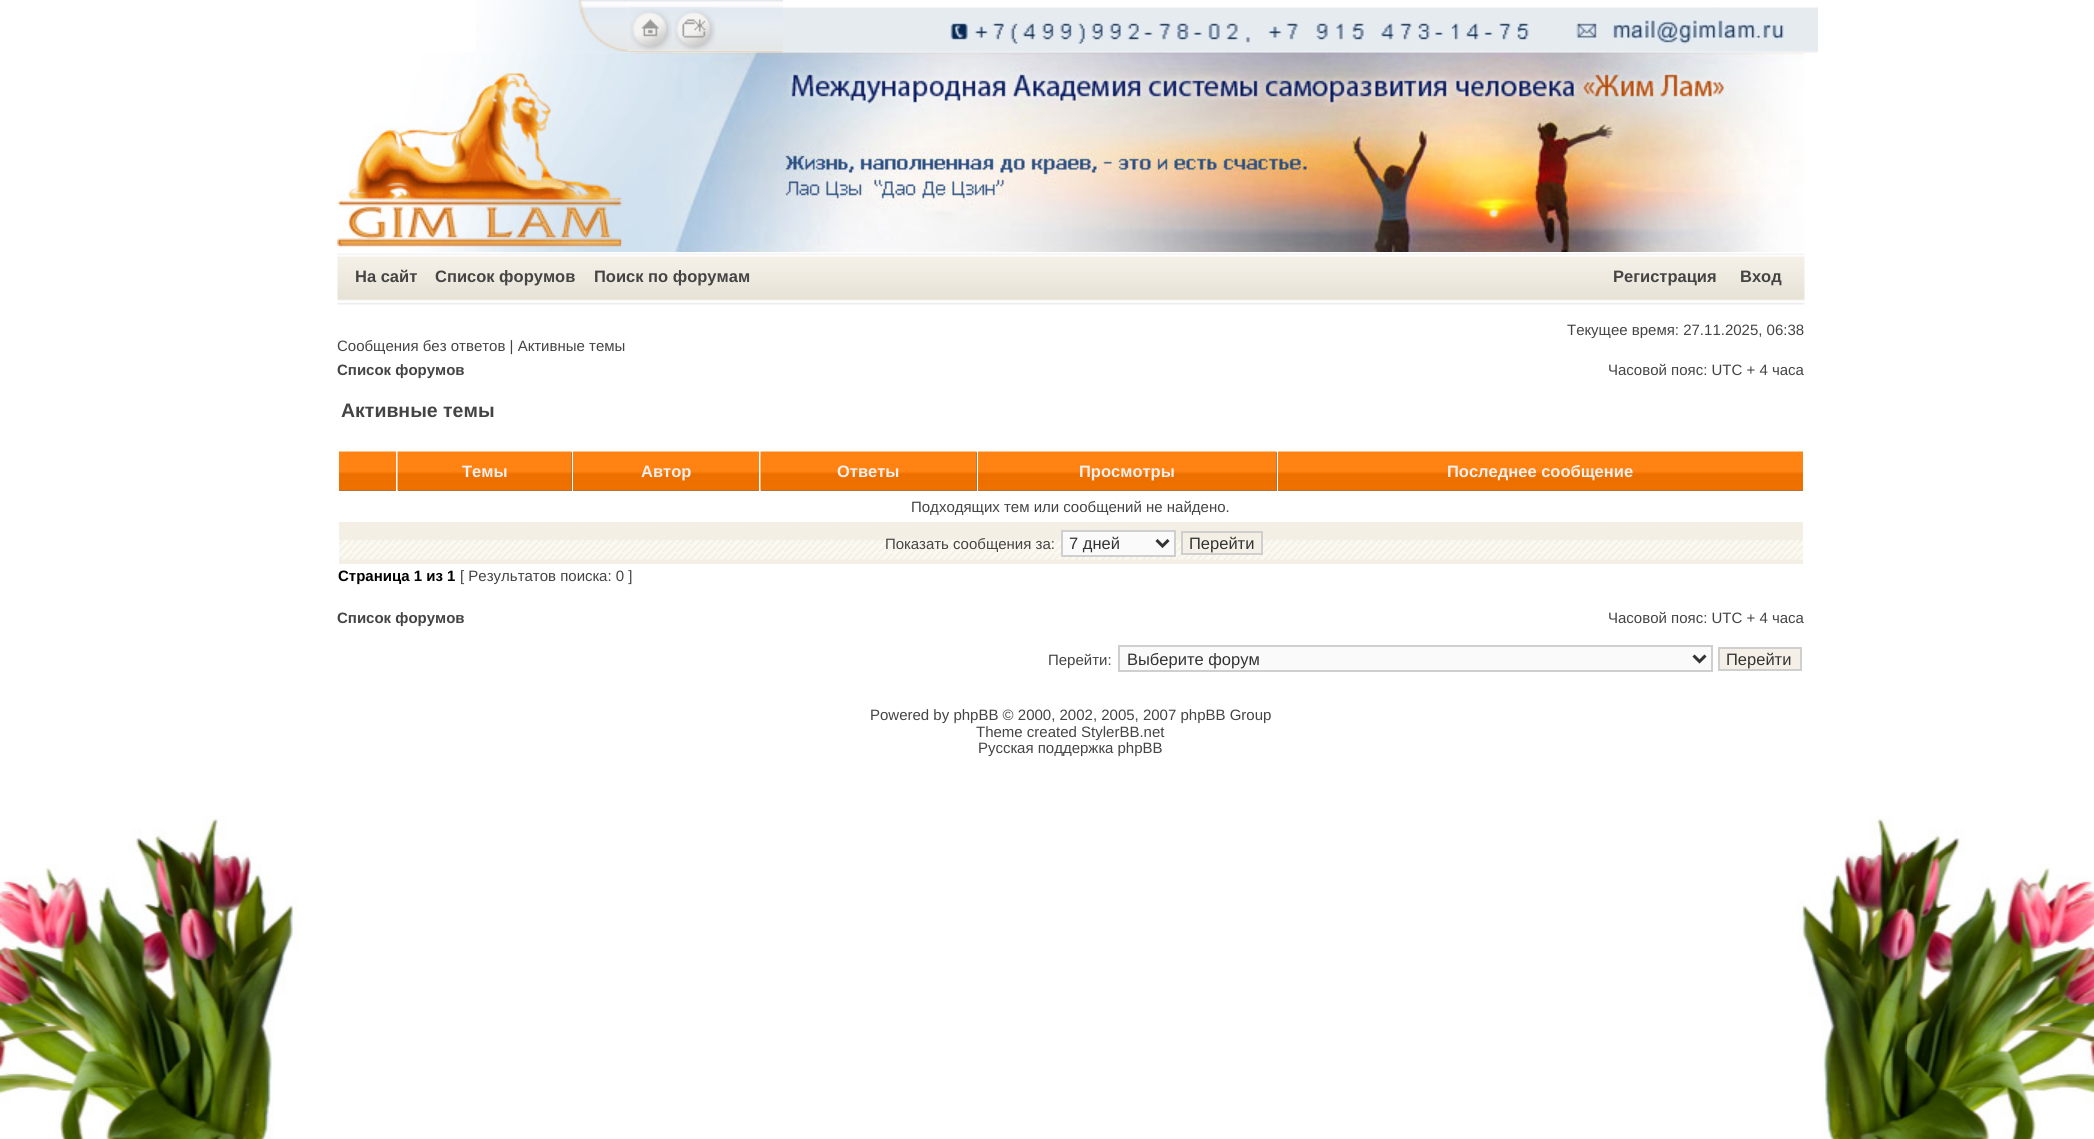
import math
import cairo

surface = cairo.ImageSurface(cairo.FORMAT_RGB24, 2094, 1139)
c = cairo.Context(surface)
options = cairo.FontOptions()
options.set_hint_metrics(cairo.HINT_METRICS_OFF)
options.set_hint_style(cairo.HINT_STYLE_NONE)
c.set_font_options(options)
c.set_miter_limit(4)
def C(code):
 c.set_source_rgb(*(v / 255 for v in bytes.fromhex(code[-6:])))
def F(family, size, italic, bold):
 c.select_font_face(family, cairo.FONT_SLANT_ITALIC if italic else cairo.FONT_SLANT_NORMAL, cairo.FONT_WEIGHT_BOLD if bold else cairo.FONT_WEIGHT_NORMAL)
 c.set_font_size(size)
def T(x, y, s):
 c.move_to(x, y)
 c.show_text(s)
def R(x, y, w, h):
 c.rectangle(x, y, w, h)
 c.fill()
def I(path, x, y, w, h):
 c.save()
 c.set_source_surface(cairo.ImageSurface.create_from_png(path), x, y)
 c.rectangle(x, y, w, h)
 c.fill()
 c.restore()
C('ffffff')
c.paint()
I('1.png',0,816,2094,323)
I('2.png',476,0,153,53)
I('3.png',628,0,155,53)
I('4.png',628,7,44,44)
I('5.png',672,7,44,44)
I('6.png',783,7,1035,46)
I('7.png',337,52,1468,200)
I('8.png',337,52,336,194)
I('9.png',337,253,1468,52)
F('Liberation Sans',16.5,0,1)
C('444444')
T(355,282,'На сайт')
T(435,282,'Список форумов')
T(594,282,'Поиск по форумам')
T(1613,282,'Регистрация')
T(1740,282,'Вход')
F('Liberation Sans',15,0,0)
T(1567,335,'Текущее время: 27.11.2025, 06:38')
T(337,351,'Сообщения без ответов | Активные темы')
F('Liberation Sans',15,0,1)
T(337,375,'Список форумов')
F('Liberation Sans',15,0,0)
T(1608,375,'Часовой пояс: UTC + 4 часа')
F('Liberation Sans',19.5,0,1)
T(341,417,'Активные темы')
C('737373')
R(339,490,57,1)
I('10.png',339,451,57,40)
R(398,452,174,39)
I('11.png',397,451,175,40)
F('Liberation Sans',16.5,0,1)
C('f0f0f0')
T(462,477,'Темы')
C('737373')
R(573,490,186,1)
I('12.png',573,451,186,40)
C('f0f0f0')
T(641,477,'Автор')
C('737373')
R(761,452,216,39)
I('13.png',760,451,217,40)
C('f0f0f0')
T(837,477,'Ответы')
C('737373')
R(978,452,299,39)
I('14.png',978,451,299,40)
C('f0f0f0')
T(1079,477,'Просмотры')
C('737373')
R(1278,490,525,1)
I('15.png',1278,451,525,40)
C('f0f0f0')
T(1447,477,'Последнее сообщение')
F('Liberation Sans',15,0,0)
C('444444')
T(911,512,'Подходящих тем или сообщений не найдено.')
I('16.png',339,522,1464,42)
T(885,549,'Показать сообщения за:')
C('fafafa')
c.rectangle(1062,531,113,25)
c.fill_preserve()
C('cfcfcf')
c.stroke()
c.new_path()
c.move_to(1156.5,540)
c.line_to(1162.5,546)
c.line_to(1168.5,540)
C('333333')
c.set_line_width(3)
c.stroke()
F('Liberation Sans',16.5,0,0)
T(1069,549,'7 дней')
C('f4f0e7')
R(1183,539,78,14)
c.rectangle(1182,532,80,22)
C('cfcfcf')
c.set_line_width(2)
c.stroke()
C('333333')
T(1189,549,'Перейти')
F('Liberation Sans',15,0,1)
C('000000')
T(338,581,'Страница 1 из 1')
F('Liberation Sans',15,0,0)
C('444444')
T(460,581,'[ Результатов поиска: 0 ]')
F('Liberation Sans',15,0,1)
T(337,623,'Список форумов')
F('Liberation Sans',15,0,0)
T(1608,623,'Часовой пояс: UTC + 4 часа')
T(1048,665,'Перейти:')
C('fafafa')
c.rectangle(1119,646,593,25)
c.fill_preserve()
C('cfcfcf')
c.stroke()
c.new_path()
c.move_to(1693.5,655.5)
c.line_to(1699.5,661.5)
c.line_to(1705.5,655.5)
C('333333')
c.set_line_width(3)
c.stroke()
F('Liberation Sans',16.5,0,0)
T(1127,665,'Выберите форум')
C('f4f0e7')
c.rectangle(1719,648,82,22)
c.fill_preserve()
C('cfcfcf')
c.set_line_width(2)
c.stroke()
C('333333')
T(1726,665,'Перейти')
F('Liberation Sans',15,0,0)
C('444444')
T(870,720,'Powered by phpBB © 2000, 2002, 2005, 2007 phpBB Group')
T(976,737,'Theme created StylerBB.net')
T(978,753,'Русская поддержка phpBB')
surface.write_to_png('o.png')
